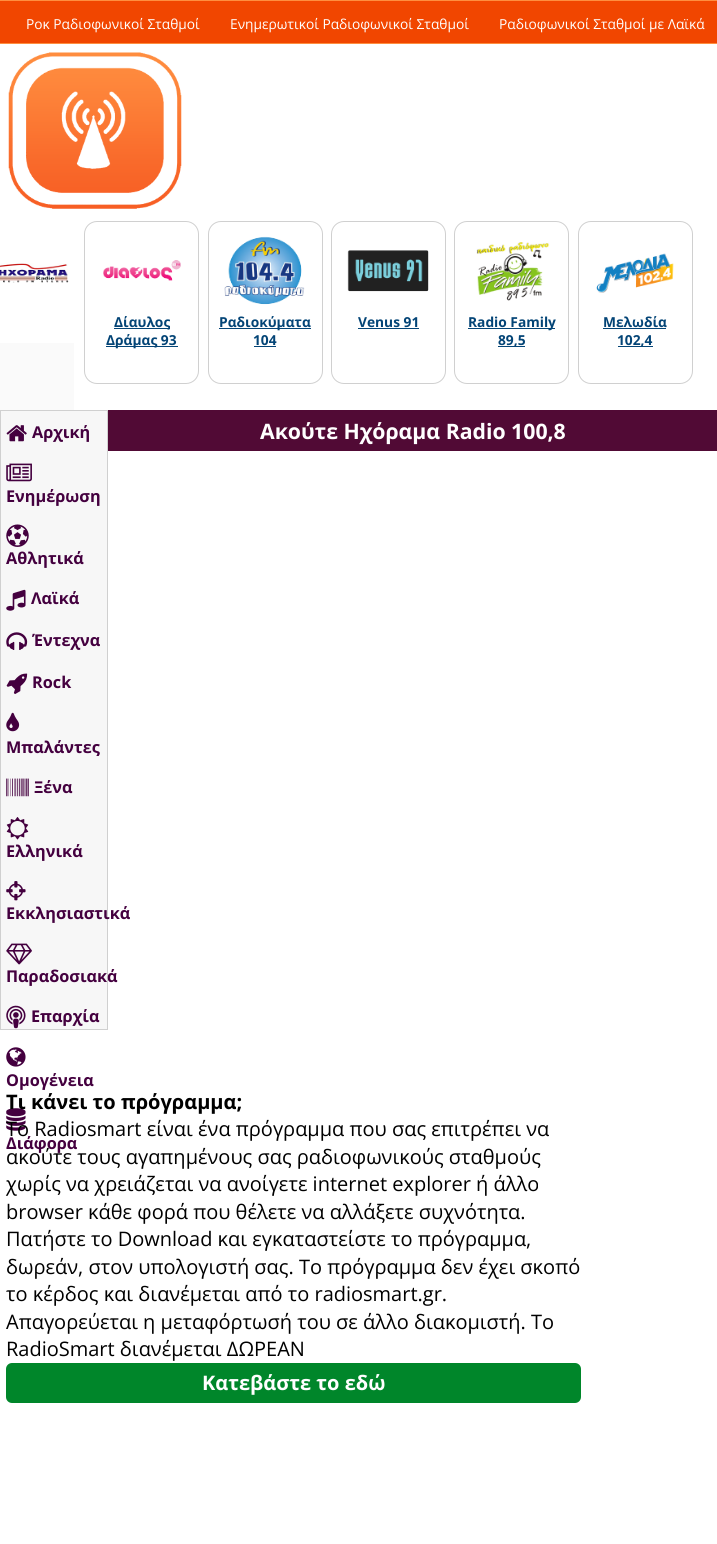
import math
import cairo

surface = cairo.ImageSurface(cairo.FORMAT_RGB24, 717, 1544)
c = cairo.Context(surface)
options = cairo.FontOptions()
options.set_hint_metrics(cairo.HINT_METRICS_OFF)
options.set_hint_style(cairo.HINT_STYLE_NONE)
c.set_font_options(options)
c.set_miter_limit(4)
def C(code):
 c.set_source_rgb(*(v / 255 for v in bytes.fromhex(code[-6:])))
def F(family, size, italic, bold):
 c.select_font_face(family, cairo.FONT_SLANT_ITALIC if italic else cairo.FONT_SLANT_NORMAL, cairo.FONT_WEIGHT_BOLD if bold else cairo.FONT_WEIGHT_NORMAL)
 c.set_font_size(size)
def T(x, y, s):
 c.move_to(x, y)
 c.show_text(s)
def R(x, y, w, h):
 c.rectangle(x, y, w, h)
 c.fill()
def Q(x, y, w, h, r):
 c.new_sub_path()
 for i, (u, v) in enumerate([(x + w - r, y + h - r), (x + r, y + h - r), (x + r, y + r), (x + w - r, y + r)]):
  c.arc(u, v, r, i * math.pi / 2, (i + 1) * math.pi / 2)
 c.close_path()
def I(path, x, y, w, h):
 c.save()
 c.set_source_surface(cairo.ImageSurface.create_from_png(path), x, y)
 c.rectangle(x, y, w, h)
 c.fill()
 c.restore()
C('ffffff')
c.paint()
C('f14600')
R(0,1,717,42)
C('ff8e3f')
R(0,0,717,1)
R(0,43,717,1)
F('Open Sans',13.75,0,0)
C('ffffff')
T(26,29,'Ροκ Ραδιοφωνικοί Σταθμοί')
T(230,29,'Ενημερωτικοί Ραδιοφωνικοί Σταθμοί')
T(499,29,'Ραδιοφωνικοί Σταθμοί με Λαϊκά')
I('1.png',8,52,174,157)
I('2.png',0,263,69,20)
C('fafafa')
R(0,343,74,67)
Q(84.5,221.5,114,162,12.5)
C('d0d0d0')
c.set_line_width(1)
c.stroke()
I('3.png',103,260,78,21)
C('034476')
R(114,328,56,1)
F('Open Sans',13.75,0,1)
T(114,327,'Δίαυλος')
R(106,346,72,1)
T(106,345,'Δράμας 93')
Q(208.5,221.5,114,162,12.5)
C('d0d0d0')
c.stroke()
I('4.png',224,236,81,69)
C('034476')
R(219,328,92,1)
T(219,327,'Ραδιοκύματα')
T(253,345,'104')
R(254,346,22,1)
Q(331.5,221.5,114,162,12.5)
C('d0d0d0')
c.stroke()
I('5.png',347,250,82,42)
C('034476')
T(358,327,'Venus 91')
R(358,328,61,1)
Q(454.5,221.5,114,162,12.5)
C('d0d0d0')
c.stroke()
I('6.png',476,242,74,59)
C('034476')
R(468,328,87,1)
T(468,327,'Radio Family')
R(498,346,27,1)
T(498,345,'89,5')
Q(578.5,221.5,114,162,12.5)
C('d0d0d0')
c.stroke()
I('7.png',596,253,78,40)
C('034476')
T(603,327,'Μελωδία')
R(603,328,63,1)
R(618,346,35,1)
T(617,345,'102,4')
C('510a35')
R(108,410,609,41)
F('Open Sans',21.25,0,1)
C('ffffff')
T(260,439,'Ακούτε Ηχόραμα Radio 100,8')
I('21.png',6,1108,20,23)
F('Open Sans',20,0,1)
C('000000')
T(6,1109,'Τι κάνει το πρόγραμμα;')
F('Open Sans',20,0,0)
T(6,1136,'Το Radiosmart είναι ένα πρόγραμμα που σας επιτρέπει να')
T(6,1164,'ακούτε τους αγαπημένους σας ραδιοφωνικούς σταθμούς')
T(6,1191,'χωρίς να χρειάζεται να ανοίγετε internet explorer ή άλλο')
T(6,1219,'browser κάθε φορά που θέλετε να αλλάξετε συχνότητα.')
T(6,1246,'Πατήστε το Download και εγκαταστείστε το πρόγραμμα,')
T(6,1274,'δωρεάν, στον υπολογιστή σας. Το πρόγραμμα δεν έχει σκοπό')
T(6,1301,'το κέρδος και διανέμεται από το radiosmart.gr.')
T(6,1329,'Απαγορεύεται η μεταφόρτωσή του σε άλλο διακομιστή. To')
T(6,1356,'RadioSmart διανέμεται ΔΩΡΕΑΝ')
C('00862a')
Q(6,1363,575,40,6)
c.fill()
F('Open Sans',20,0,1)
C('ffffff')
T(202,1390,'Κατεβάστε το εδώ')
C('f7f7f7')
c.rectangle(.5,410.5,107,619)
c.fill_preserve()
C('d0d0d0')
c.stroke()
I('8.png',6,425,21,17)
F('Open Sans',16.25,0,1)
C('44003f')
T(32,438,'Αρχική')
I('9.png',6,463,26,19)
T(6,502,'Ενημέρωση')
I('10.png',6,524,23,23)
T(6,564,'Αθλητικά')
I('11.png',6,589,20,22)
T(31,604,'Λαϊκά')
I('12.png',6,632,22,18)
T(32,646,'Έντεχνα')
I('13.png',6,673,22,21)
T(32,688,'Rock')
I('14.png',6,712,14,20)
T(6,753,'Μπαλάντες')
I('15.png',6,778,23,19)
T(34,793,'Ξένα')
I('16.png',6,817,23,23)
T(6,857,'Ελληνικά')
I('17.png',6,881,20,20)
T(6,919,'Εκκλησιαστικά')
I('18.png',6,943,26,22)
T(6,982,'Παραδοσιακά')
I('19.png',6,1005,20,24)
T(31,1022,'Επαρχία')
I('20.png',6,1047,20,20)
T(6,1086,'Ομογένεια')
T(6,1149,'Διάφορα')
surface.write_to_png('o.png')
